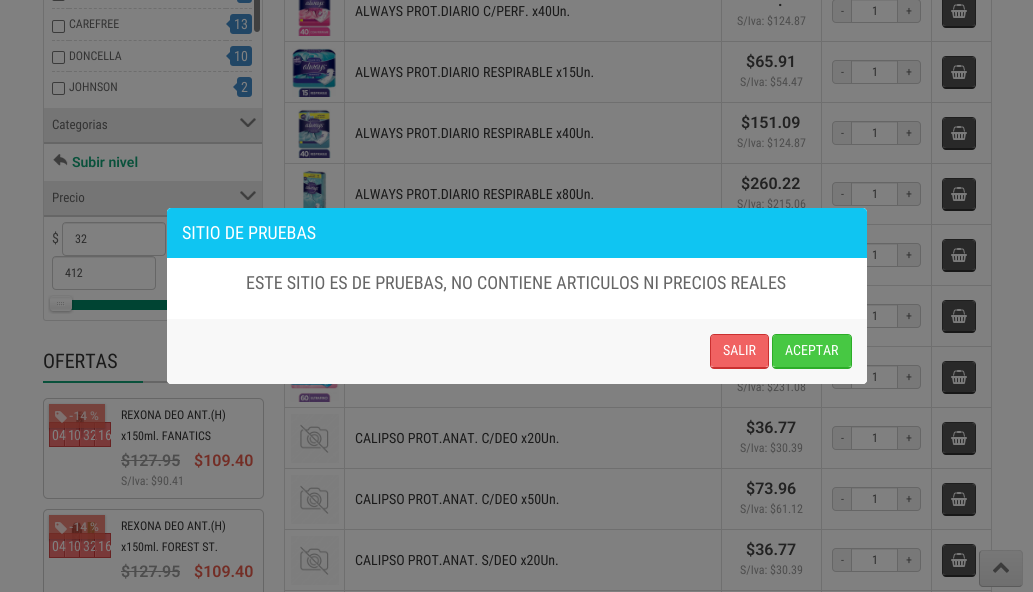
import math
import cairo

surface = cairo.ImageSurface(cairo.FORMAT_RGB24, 1033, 592)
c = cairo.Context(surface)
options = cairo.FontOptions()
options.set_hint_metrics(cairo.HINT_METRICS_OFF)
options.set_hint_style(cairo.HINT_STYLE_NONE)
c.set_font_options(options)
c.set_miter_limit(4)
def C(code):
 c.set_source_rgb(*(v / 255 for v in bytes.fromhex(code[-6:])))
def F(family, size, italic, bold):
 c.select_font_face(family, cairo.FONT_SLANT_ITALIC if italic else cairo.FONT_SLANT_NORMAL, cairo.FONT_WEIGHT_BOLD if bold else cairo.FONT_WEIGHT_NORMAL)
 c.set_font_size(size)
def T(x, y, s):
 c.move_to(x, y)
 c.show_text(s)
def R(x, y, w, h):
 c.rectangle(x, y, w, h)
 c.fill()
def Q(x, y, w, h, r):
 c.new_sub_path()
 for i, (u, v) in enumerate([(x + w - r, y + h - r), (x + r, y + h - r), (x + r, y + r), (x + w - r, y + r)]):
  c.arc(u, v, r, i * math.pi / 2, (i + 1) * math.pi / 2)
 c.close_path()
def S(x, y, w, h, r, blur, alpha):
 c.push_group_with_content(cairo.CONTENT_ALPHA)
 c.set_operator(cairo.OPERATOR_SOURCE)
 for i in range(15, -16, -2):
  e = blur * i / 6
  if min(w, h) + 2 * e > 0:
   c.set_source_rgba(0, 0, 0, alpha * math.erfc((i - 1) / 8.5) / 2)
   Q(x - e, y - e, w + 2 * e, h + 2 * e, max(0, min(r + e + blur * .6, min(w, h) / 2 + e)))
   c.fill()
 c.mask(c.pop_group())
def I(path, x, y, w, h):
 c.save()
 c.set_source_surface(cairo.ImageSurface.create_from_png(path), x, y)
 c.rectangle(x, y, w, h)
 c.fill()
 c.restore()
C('808080')
c.paint()
Q(43.5,-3.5,219,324,2.5)
C('6f6f6f')
c.set_line_width(1)
c.stroke()
C('404040')
Q(254,-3,6,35,3)
c.fill()
Q(52.5,-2.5,12,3,1.5)
C('3b3b3b')
c.stroke()
C('214665')
Q(237,-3,15,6,3)
c.fill()
c.new_path()
c.move_to(52,8.5)
c.line_to(69,8.5)
C('6e6e6e')
c.set_dash([3,1.67])
c.stroke()
Q(52.5,20.5,12,12,1.5)
C('3b3b3b')
c.set_dash([])
c.stroke()
c.new_path()
c.move_to(69,8.5)
c.line_to(226,8.5)
C('6e6e6e')
c.set_dash([3,1.97])
c.stroke()
F('Roboto Condensed',12,0,0)
C('333333')
T(69,28,'CAREFREE')
c.new_path()
c.move_to(226,8.5)
c.line_to(252,8.5)
C('6e6e6e')
c.set_dash([3,1.6])
c.stroke()
C('214665')
Q(230,14,22,20,3)
c.fill()
c.new_path()
c.move_to(230,20)
c.line_to(230,28)
c.line_to(226,24)
c.close_path()
c.fill()
F('Roboto Condensed',14,0,0)
C('808080')
T(234,29,'13')
c.new_path()
c.move_to(52,40.5)
c.line_to(69,40.5)
C('6e6e6e')
c.set_dash([3,1.67])
c.stroke()
Q(52.5,51.5,12,12,1.5)
C('3b3b3b')
c.set_dash([])
c.stroke()
c.new_path()
c.move_to(69,40.5)
c.line_to(226,40.5)
C('6e6e6e')
c.set_dash([3,1.97])
c.stroke()
F('Roboto Condensed',12,0,0)
C('333333')
T(69,60,'DONCELLA')
c.new_path()
c.move_to(226,40.5)
c.line_to(252,40.5)
C('6e6e6e')
c.set_dash([3,1.6])
c.stroke()
C('214665')
Q(230,46,22,20,3)
c.fill()
c.new_path()
c.move_to(230,52)
c.line_to(230,60)
c.line_to(226,56)
c.close_path()
c.fill()
F('Roboto Condensed',14,0,0)
C('808080')
T(234,61,'10')
c.new_path()
c.move_to(52,71.5)
c.line_to(69,71.5)
C('6e6e6e')
c.set_dash([3,1.67])
c.stroke()
Q(52.5,82.5,12,12,1.5)
C('3b3b3b')
c.set_dash([])
c.stroke()
c.new_path()
c.move_to(69,71.5)
c.line_to(226,71.5)
C('6e6e6e')
c.set_dash([3,1.97])
c.stroke()
F('Roboto Condensed',12,0,0)
C('333333')
T(69,91,'JOHNSON')
c.new_path()
c.move_to(226,71.5)
c.line_to(252,71.5)
C('6e6e6e')
c.set_dash([3,1.6])
c.stroke()
C('214665')
Q(237,77,15,20,3)
c.fill()
c.new_path()
c.move_to(237,83)
c.line_to(237,91)
c.line_to(233,87)
c.close_path()
c.fill()
F('Roboto Condensed',14,0,0)
C('808080')
T(241,92,'2')
C('757575')
R(44,108,218,34)
F('Roboto Condensed',13,0,0)
C('333333')
T(52,129,'Categorias')
I('1.png',240,118,16,9)
C('666666')
R(44,142,218,2)
I('2.png',53,154,15,12)
F('Roboto SemiBold',14,0,0)
C('09513b')
T(72,167,'Subir nivel')
C('757575')
R(44,181,218,34)
F('Roboto Condensed',13,0,0)
C('333333')
T(52,202,'Precio')
I('1.png',240,191,16,9)
C('666666')
R(44,215,123,2)
F('Roboto Condensed',14,0,0)
C('333333')
T(52,243,'$')
C('767676')
c.new_path()
c.move_to(66,224)
c.line_to(162,224)
c.curve_to(164,224,165,225,165,227)
c.curve_to(165,219,149,223,146,223)
c.line_to(82,223)
c.curve_to(79,223,63,219,63,227)
c.curve_to(63,225,64,224,66,224)
c.close_path()
c.fill()
Q(62.5,222.5,103,33,3.5)
C('666666')
c.set_dash([])
c.stroke()
F('Roboto Condensed',12,0,0)
C('2b2b2b')
T(75,243,'32')
C('767676')
c.new_path()
c.move_to(56,258)
c.line_to(152,258)
c.curve_to(154,258,155,259,155,261)
c.curve_to(155,253,139,257,136,257)
c.line_to(72,257)
c.curve_to(69,257,53,253,53,261)
c.curve_to(53,259,54,258,56,258)
c.close_path()
c.fill()
Q(52.5,256.5,103,33,3.5)
C('666666')
c.stroke()
C('2b2b2b')
T(65,277,'412')
C('004433')
R(71,300,96,10)
I('3.png',48,295,26,19)
F('Roboto Condensed',20,0,0)
C('1a1a1a')
T(43,368,'OFERTAS')
C('09513b')
R(43,381,100,2)
C('666666')
R(143,381,26,2)
Q(43.5,398.5,220,100,4.5)
c.stroke()
I('5.png',76,411,8,29)
c.rectangle(49.5,422.5,61,24)
c.set_source_rgba(0.396,0.094,0.094,0.9)
c.stroke()
C('793939')
R(50,423,14,23)
C('682323')
R(64,423,1,23)
c.set_source_rgba(0.471,0.192,0.192,0.9)
R(66,423,14,23)
c.set_source_rgba(0.396,0.094,0.094,0.9)
R(79,423,1,23)
C('7f4141')
R(65,423,1,23)
F('Roboto Condensed',14,0,0)
C('7d7878')
T(74,440,'0')
c.set_source_rgba(0.471,0.192,0.192,0.9)
R(80,423,14,23)
C('682323')
R(94,423,1,23)
c.set_source_rgba(0.498,0.227,0.227,0.9)
R(80,423,1,23)
C('793939')
R(96,423,14,23)
C('808080')
T(90,440,'2')
C('7f4141')
R(95,423,1,23)
c.save()
c.set_fill_rule(cairo.FILL_RULE_EVEN_ODD)
c.new_path()
c.move_to(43,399)
c.line_to(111,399)
c.line_to(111,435)
c.line_to(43,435)
c.close_path()
c.move_to(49,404)
c.line_to(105,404)
c.line_to(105,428)
c.line_to(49,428)
c.close_path()
c.clip()
C('000000')
S(49,405,56,24,0,1.5,.22)
c.restore()
c.set_source_rgba(0.451,0.18,0.149,0.75)
R(49,404,56,24)
I('4.png',55,411,12,12)
F('Roboto SemiBold',12,0,0)
C('7c6f6e')
T(69,420,'-14 %')
F('Roboto Condensed',14,0,0)
C('808080')
T(52,440,'04')
T(68,440,'1')
C('7d7878')
T(83,440,'3')
C('808080')
T(98,440,'16')
F('Roboto Condensed',12,0,0)
C('1a1a1a')
T(121,419,'REXONA DEO ANT.(H)')
T(121,440,'x150ml. FANATICS')
F('Roboto SemiBold',16,0,0)
C('4d4d4d')
T(121,466,'$127.95')
R(121,460,59,1)
C('732e26')
T(194,466,'$109.40')
F('Roboto Condensed',12,0,0)
C('4d4d4d')
T(121,485,'S/Iva: $90.41')
Q(43.5,509.5,220,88,4.5)
C('666666')
c.stroke()
I('6.png',71,522,24,29)
c.rectangle(49.5,533.5,61,24)
c.set_source_rgba(0.396,0.094,0.094,0.9)
c.stroke()
C('793939')
R(50,534,14,23)
C('682323')
R(64,534,1,23)
c.set_source_rgba(0.471,0.192,0.192,0.9)
R(66,534,14,23)
c.set_source_rgba(0.396,0.094,0.094,0.9)
R(79,534,1,23)
C('7f4141')
R(65,534,1,23)
F('Roboto Condensed',14,0,0)
C('7d7878')
T(74,551,'0')
c.set_source_rgba(0.471,0.192,0.192,0.9)
R(80,534,15,23)
c.set_source_rgba(0.396,0.094,0.094,0.9)
R(94,534,1,23)
c.set_source_rgba(0.498,0.227,0.227,0.9)
R(80,534,1,23)
C('793939')
R(96,534,14,23)
C('7d7878')
T(90,551,'2')
C('7f4141')
R(95,534,1,23)
c.save()
c.set_fill_rule(cairo.FILL_RULE_EVEN_ODD)
c.new_path()
c.move_to(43,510)
c.line_to(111,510)
c.line_to(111,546)
c.line_to(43,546)
c.close_path()
c.move_to(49,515)
c.line_to(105,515)
c.line_to(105,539)
c.line_to(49,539)
c.close_path()
c.clip()
C('000000')
S(49,516,56,24,0,1.5,.22)
c.restore()
c.set_source_rgba(0.451,0.18,0.149,0.75)
R(49,515,56,24)
I('4.png',55,522,12,12)
F('Roboto SemiBold',12,0,0)
C('7c6f6e')
T(69,531,'-14 %')
F('Roboto Condensed',14,0,0)
C('808080')
T(52,551,'04')
C('7d7878')
T(68,551,'1')
T(83,551,'3')
C('808080')
T(98,551,'16')
F('Roboto Condensed',12,0,0)
C('1a1a1a')
T(121,530,'REXONA DEO ANT.(H)')
T(121,551,'x150ml. FOREST ST.')
F('Roboto SemiBold',16,0,0)
C('4d4d4d')
T(121,577,'$127.95')
R(121,571,59,1)
C('732e26')
T(194,577,'$109.40')
C('6f6f6f')
R(284,0,1,41)
I('7.png',298,0,33,36)
R(991,0,1,41)
R(344,0,1,41)
F('Roboto Condensed',14,0,0)
C('1a1a1a')
T(355,16,'ALWAYS PROT.DIARIO C/PERF. x40Un.')
C('6f6f6f')
R(721,0,1,41)
F('Roboto SemiBold',16,0,0)
C('222222')
T(778,6,'.')
F('Roboto Condensed',12,0,0)
C('4d4d4d')
T(737,25,'S/Iva: $124.87')
C('6f6f6f')
R(821,0,1,41)
C('787878')
c.new_path()
c.move_to(836,-.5)
c.line_to(851.5,-.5)
c.line_to(851.5,22.5)
c.line_to(836,22.5)
c.curve_to(834,22.5,832.5,21,832.5,19)
c.line_to(832.5,3)
c.curve_to(832.5,1,834,-.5,836,-.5)
c.close_path()
c.fill_preserve()
C('666666')
c.stroke()
C('333333')
T(841,15,'-')
C('767676')
R(852,0,45,1)
c.rectangle(851.5,-.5,46,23)
C('666666')
c.stroke()
C('2b2b2b')
T(872,15,'1')
C('787878')
c.new_path()
c.move_to(897.5,-.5)
c.line_to(917,-.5)
c.curve_to(919,-.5,920.5,1,920.5,3)
c.line_to(920.5,19)
c.curve_to(920.5,21,919,22.5,917,22.5)
c.line_to(897.5,22.5)
c.close_path()
c.fill_preserve()
C('666666')
c.stroke()
C('333333')
T(906,15,'+')
C('6f6f6f')
R(931,0,1,41)
C('292929')
c.new_path()
c.move_to(946,-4)
c.line_to(972,-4)
c.curve_to(973.5,-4,975,-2.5,975,-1)
c.line_to(975,24)
c.curve_to(975,25,973.5,26,972,26)
c.line_to(946,26)
c.curve_to(944.5,26,943,25,943,24)
c.line_to(943,-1)
c.curve_to(943,-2.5,944.5,-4,946,-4)
c.close_path()
c.fill()
C('1e1e1e')
c.new_path()
c.move_to(976,24)
c.line_to(976,-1)
c.curve_to(976,-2,975.5,-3,975,-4)
c.line_to(974,-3)
c.line_to(975,-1.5)
c.line_to(975,24)
c.line_to(974.5,25)
c.line_to(975,26.5)
c.curve_to(975.5,25.5,976,25,976,24)
c.close_path()
c.fill()
C('181818')
c.new_path()
c.move_to(946,28)
c.line_to(972,28)
c.curve_to(973,28,974.5,27.5,975,26.5)
c.line_to(974.5,25)
c.curve_to(974,25.5,973,26,972,26)
c.line_to(946,26)
c.curve_to(945,26,944,25.5,943.5,25)
c.line_to(943,26.5)
c.curve_to(943.5,27.5,945,28,946,28)
c.close_path()
c.fill()
C('1e1e1e')
c.new_path()
c.move_to(942,-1)
c.line_to(942,24)
c.curve_to(942,25,942.5,25.5,943,26.5)
c.line_to(943.5,25)
c.line_to(943,24)
c.line_to(943,-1.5)
c.line_to(944,-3)
c.line_to(943,-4)
c.curve_to(942.5,-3,942,-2,942,-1)
c.close_path()
c.fill()
I('8.png',951,4,16,14)
C('6f6f6f')
R(284,41,708,1)
R(284,42,1,60)
I('9.png',292,48,44,49)
R(991,42,1,60)
R(344,42,1,60)
F('Roboto Condensed',14,0,0)
C('1a1a1a')
T(355,77,'ALWAYS PROT.DIARIO RESPIRABLE x15Un.')
C('6f6f6f')
R(721,42,1,60)
F('Roboto SemiBold',16,0,0)
C('222222')
T(746,67,'$65.91')
F('Roboto Condensed',12,0,0)
C('4d4d4d')
T(740,86,'S/Iva: $54.47')
C('6f6f6f')
R(821,42,1,60)
C('787878')
c.new_path()
c.move_to(836,60.5)
c.line_to(851.5,60.5)
c.line_to(851.5,83.5)
c.line_to(836,83.5)
c.curve_to(834,83.5,832.5,82,832.5,80)
c.line_to(832.5,64)
c.curve_to(832.5,62,834,60.5,836,60.5)
c.close_path()
c.fill_preserve()
C('666666')
c.stroke()
C('333333')
T(841,76,'-')
C('767676')
R(852,61,45,1)
c.rectangle(851.5,60.5,46,23)
C('666666')
c.stroke()
C('2b2b2b')
T(872,76,'1')
C('787878')
c.new_path()
c.move_to(897.5,60.5)
c.line_to(917,60.5)
c.curve_to(919,60.5,920.5,62,920.5,64)
c.line_to(920.5,80)
c.curve_to(920.5,82,919,83.5,917,83.5)
c.line_to(897.5,83.5)
c.close_path()
c.fill_preserve()
C('666666')
c.stroke()
C('333333')
T(906,76,'+')
C('6f6f6f')
R(931,42,1,60)
C('292929')
c.new_path()
c.move_to(946,57)
c.line_to(972,57)
c.curve_to(973.5,57,975,58.5,975,60)
c.line_to(975,85)
c.curve_to(975,86,973.5,87,972,87)
c.line_to(946,87)
c.curve_to(944.5,87,943,86,943,85)
c.line_to(943,60)
c.curve_to(943,58.5,944.5,57,946,57)
c.close_path()
c.fill()
C('1e1e1e')
c.new_path()
c.move_to(946,56)
c.curve_to(945,56,944,56.5,943,57)
c.line_to(944,58)
c.curve_to(944.5,57.5,945,57,946,57)
c.line_to(972,57)
c.curve_to(973,57,973.5,57.5,974,58)
c.line_to(975,57)
c.curve_to(974,56.5,973,56,972,56)
c.close_path()
c.fill()
c.new_path()
c.move_to(976,85)
c.line_to(976,60)
c.curve_to(976,59,975.5,58,975,57)
c.line_to(974,58)
c.line_to(975,59.5)
c.line_to(975,85)
c.line_to(974.5,86)
c.line_to(975,87.5)
c.curve_to(975.5,86.5,976,86,976,85)
c.close_path()
c.fill()
C('181818')
c.new_path()
c.move_to(946,89)
c.line_to(972,89)
c.curve_to(973,89,974.5,88.5,975,87.5)
c.line_to(974.5,86)
c.curve_to(974,86.5,973,87,972,87)
c.line_to(946,87)
c.curve_to(945,87,944,86.5,943.5,86)
c.line_to(943,87.5)
c.curve_to(943.5,88.5,945,89,946,89)
c.close_path()
c.fill()
C('1e1e1e')
c.new_path()
c.move_to(942,60)
c.line_to(942,85)
c.curve_to(942,86,942.5,86.5,943,87.5)
c.line_to(943.5,86)
c.line_to(943,85)
c.line_to(943,59.5)
c.line_to(944,58)
c.line_to(943,57)
c.curve_to(942.5,58,942,59,942,60)
c.close_path()
c.fill()
I('8.png',951,65,16,14)
C('6f6f6f')
R(284,102,708,1)
R(284,103,1,60)
I('10.png',298,109,33,49)
R(991,103,1,60)
R(344,103,1,60)
F('Roboto Condensed',14,0,0)
C('1a1a1a')
T(355,138,'ALWAYS PROT.DIARIO RESPIRABLE x40Un.')
C('6f6f6f')
R(721,103,1,60)
F('Roboto SemiBold',16,0,0)
C('222222')
T(741,128,'$151.09')
F('Roboto Condensed',12,0,0)
C('4d4d4d')
T(737,147,'S/Iva: $124.87')
C('6f6f6f')
R(821,103,1,60)
C('787878')
c.new_path()
c.move_to(836,121.5)
c.line_to(851.5,121.5)
c.line_to(851.5,144.5)
c.line_to(836,144.5)
c.curve_to(834,144.5,832.5,143,832.5,141)
c.line_to(832.5,125)
c.curve_to(832.5,123,834,121.5,836,121.5)
c.close_path()
c.fill_preserve()
C('666666')
c.stroke()
C('333333')
T(841,137,'-')
C('767676')
R(852,122,45,1)
c.rectangle(851.5,121.5,46,23)
C('666666')
c.stroke()
C('2b2b2b')
T(872,137,'1')
C('787878')
c.new_path()
c.move_to(897.5,121.5)
c.line_to(917,121.5)
c.curve_to(919,121.5,920.5,123,920.5,125)
c.line_to(920.5,141)
c.curve_to(920.5,143,919,144.5,917,144.5)
c.line_to(897.5,144.5)
c.close_path()
c.fill_preserve()
C('666666')
c.stroke()
C('333333')
T(906,137,'+')
C('6f6f6f')
R(931,103,1,60)
C('292929')
c.new_path()
c.move_to(946,118)
c.line_to(972,118)
c.curve_to(973.5,118,975,119.5,975,121)
c.line_to(975,146)
c.curve_to(975,147,973.5,148,972,148)
c.line_to(946,148)
c.curve_to(944.5,148,943,147,943,146)
c.line_to(943,121)
c.curve_to(943,119.5,944.5,118,946,118)
c.close_path()
c.fill()
C('1e1e1e')
c.new_path()
c.move_to(946,117)
c.curve_to(945,117,944,117.5,943,118)
c.line_to(944,119)
c.curve_to(944.5,118.5,945,118,946,118)
c.line_to(972,118)
c.curve_to(973,118,973.5,118.5,974,119)
c.line_to(975,118)
c.curve_to(974,117.5,973,117,972,117)
c.close_path()
c.fill()
c.new_path()
c.move_to(976,146)
c.line_to(976,121)
c.curve_to(976,120,975.5,119,975,118)
c.line_to(974,119)
c.line_to(975,120.5)
c.line_to(975,146)
c.line_to(974.5,147)
c.line_to(975,148.5)
c.curve_to(975.5,147.5,976,147,976,146)
c.close_path()
c.fill()
C('181818')
c.new_path()
c.move_to(946,150)
c.line_to(972,150)
c.curve_to(973,150,974.5,149.5,975,148.5)
c.line_to(974.5,147)
c.curve_to(974,147.5,973,148,972,148)
c.line_to(946,148)
c.curve_to(945,148,944,147.5,943.5,147)
c.line_to(943,148.5)
c.curve_to(943.5,149.5,945,150,946,150)
c.close_path()
c.fill()
C('1e1e1e')
c.new_path()
c.move_to(942,121)
c.line_to(942,146)
c.curve_to(942,147,942.5,147.5,943,148.5)
c.line_to(943.5,147)
c.line_to(943,146)
c.line_to(943,120.5)
c.line_to(944,119)
c.line_to(943,118)
c.curve_to(942.5,119,942,120,942,121)
c.close_path()
c.fill()
I('8.png',951,126,16,14)
C('6f6f6f')
R(284,163,708,1)
R(284,164,1,44)
I('11.png',303,170,24,38)
R(991,164,1,60)
R(344,164,1,44)
F('Roboto Condensed',14,0,0)
C('1a1a1a')
T(355,199,'ALWAYS PROT.DIARIO RESPIRABLE x80Un.')
C('6f6f6f')
R(721,164,1,44)
F('Roboto SemiBold',16,0,0)
C('222222')
T(741,189,'$260.22')
F('Roboto Condensed',12,0,0)
C('4d4d4d')
T(737,208,'S/Iva: $215.06')
C('6f6f6f')
R(821,164,1,44)
C('787878')
c.new_path()
c.move_to(836,182.5)
c.line_to(851.5,182.5)
c.line_to(851.5,205.5)
c.line_to(836,205.5)
c.curve_to(834,205.5,832.5,204,832.5,202)
c.line_to(832.5,186)
c.curve_to(832.5,184,834,182.5,836,182.5)
c.close_path()
c.fill_preserve()
C('666666')
c.stroke()
C('333333')
T(841,198,'-')
C('767676')
R(852,183,45,1)
c.rectangle(851.5,182.5,46,23)
C('666666')
c.stroke()
C('2b2b2b')
T(872,198,'1')
C('787878')
c.new_path()
c.move_to(897.5,182.5)
c.line_to(917,182.5)
c.curve_to(919,182.5,920.5,184,920.5,186)
c.line_to(920.5,202)
c.curve_to(920.5,204,919,205.5,917,205.5)
c.line_to(897.5,205.5)
c.close_path()
c.fill_preserve()
C('666666')
c.stroke()
C('333333')
T(906,198,'+')
C('6f6f6f')
R(931,164,1,60)
C('292929')
c.new_path()
c.move_to(946,179)
c.line_to(972,179)
c.curve_to(973.5,179,975,180.5,975,182)
c.line_to(975,207)
c.curve_to(975,208,973.5,209,972,209)
c.line_to(946,209)
c.curve_to(944.5,209,943,208,943,207)
c.line_to(943,182)
c.curve_to(943,180.5,944.5,179,946,179)
c.close_path()
c.fill()
C('1e1e1e')
c.new_path()
c.move_to(946,178)
c.curve_to(945,178,944,178.5,943,179)
c.line_to(944,180)
c.curve_to(944.5,179.5,945,179,946,179)
c.line_to(972,179)
c.curve_to(973,179,973.5,179.5,974,180)
c.line_to(975,179)
c.curve_to(974,178.5,973,178,972,178)
c.close_path()
c.fill()
c.new_path()
c.move_to(976,207)
c.line_to(976,182)
c.curve_to(976,181,975.5,180,975,179)
c.line_to(974,180)
c.line_to(975,181.5)
c.line_to(975,207)
c.line_to(974.5,208)
c.line_to(975,209.5)
c.curve_to(975.5,208.5,976,208,976,207)
c.close_path()
c.fill()
C('181818')
c.new_path()
c.move_to(946,211)
c.line_to(972,211)
c.curve_to(973,211,974.5,210.5,975,209.5)
c.line_to(974.5,208)
c.curve_to(974,208.5,973,209,972,209)
c.line_to(946,209)
c.curve_to(945,209,944,208.5,943.5,208)
c.line_to(943,209.5)
c.curve_to(943.5,210.5,945,211,946,211)
c.close_path()
c.fill()
C('1e1e1e')
c.new_path()
c.move_to(942,182)
c.line_to(942,207)
c.curve_to(942,208,942.5,208.5,943,209.5)
c.line_to(943.5,208)
c.line_to(943,207)
c.line_to(943,181.5)
c.line_to(944,180)
c.line_to(943,179)
c.curve_to(942.5,180,942,181,942,182)
c.close_path()
c.fill()
I('8.png',951,187,16,14)
C('6f6f6f')
R(867,224,125,1)
R(991,225,1,60)
C('767676')
R(867,244,30,1)
c.rectangle(851.5,243.5,46,23)
C('666666')
c.stroke()
C('2b2b2b')
T(872,259,'1')
C('787878')
c.new_path()
c.move_to(897.5,243.5)
c.line_to(917,243.5)
c.curve_to(919,243.5,920.5,245,920.5,247)
c.line_to(920.5,263)
c.curve_to(920.5,265,919,266.5,917,266.5)
c.line_to(897.5,266.5)
c.close_path()
c.fill_preserve()
C('666666')
c.stroke()
C('333333')
T(906,259,'+')
C('6f6f6f')
R(931,225,1,60)
C('292929')
c.new_path()
c.move_to(946,240)
c.line_to(972,240)
c.curve_to(973.5,240,975,241.5,975,243)
c.line_to(975,268)
c.curve_to(975,269,973.5,270,972,270)
c.line_to(946,270)
c.curve_to(944.5,270,943,269,943,268)
c.line_to(943,243)
c.curve_to(943,241.5,944.5,240,946,240)
c.close_path()
c.fill()
C('1e1e1e')
c.new_path()
c.move_to(946,239)
c.curve_to(945,239,944,239.5,943,240)
c.line_to(944,241)
c.curve_to(944.5,240.5,945,240,946,240)
c.line_to(972,240)
c.curve_to(973,240,973.5,240.5,974,241)
c.line_to(975,240)
c.curve_to(974,239.5,973,239,972,239)
c.close_path()
c.fill()
c.new_path()
c.move_to(976,268)
c.line_to(976,243)
c.curve_to(976,242,975.5,241,975,240)
c.line_to(974,241)
c.line_to(975,242.5)
c.line_to(975,268)
c.line_to(974.5,269)
c.line_to(975,270.5)
c.curve_to(975.5,269.5,976,269,976,268)
c.close_path()
c.fill()
C('181818')
c.new_path()
c.move_to(946,272)
c.line_to(972,272)
c.curve_to(973,272,974.5,271.5,975,270.5)
c.line_to(974.5,269)
c.curve_to(974,269.5,973,270,972,270)
c.line_to(946,270)
c.curve_to(945,270,944,269.5,943.5,269)
c.line_to(943,270.5)
c.curve_to(943.5,271.5,945,272,946,272)
c.close_path()
c.fill()
C('1e1e1e')
c.new_path()
c.move_to(942,243)
c.line_to(942,268)
c.curve_to(942,269,942.5,269.5,943,270.5)
c.line_to(943.5,269)
c.line_to(943,268)
c.line_to(943,242.5)
c.line_to(944,241)
c.line_to(943,240)
c.curve_to(942.5,241,942,242,942,243)
c.close_path()
c.fill()
I('8.png',951,248,16,14)
C('6f6f6f')
R(867,285,125,1)
R(991,286,1,60)
C('767676')
R(867,305,30,1)
c.rectangle(851.5,304.5,46,23)
C('666666')
c.stroke()
C('2b2b2b')
T(872,320,'1')
C('787878')
c.new_path()
c.move_to(897.5,304.5)
c.line_to(917,304.5)
c.curve_to(919,304.5,920.5,306,920.5,308)
c.line_to(920.5,324)
c.curve_to(920.5,326,919,327.5,917,327.5)
c.line_to(897.5,327.5)
c.close_path()
c.fill_preserve()
C('666666')
c.stroke()
C('333333')
T(906,320,'+')
C('6f6f6f')
R(931,286,1,60)
C('292929')
c.new_path()
c.move_to(946,301)
c.line_to(972,301)
c.curve_to(973.5,301,975,302.5,975,304)
c.line_to(975,329)
c.curve_to(975,330,973.5,331,972,331)
c.line_to(946,331)
c.curve_to(944.5,331,943,330,943,329)
c.line_to(943,304)
c.curve_to(943,302.5,944.5,301,946,301)
c.close_path()
c.fill()
C('1e1e1e')
c.new_path()
c.move_to(946,300)
c.curve_to(945,300,944,300.5,943,301)
c.line_to(944,302)
c.curve_to(944.5,301.5,945,301,946,301)
c.line_to(972,301)
c.curve_to(973,301,973.5,301.5,974,302)
c.line_to(975,301)
c.curve_to(974,300.5,973,300,972,300)
c.close_path()
c.fill()
c.new_path()
c.move_to(976,329)
c.line_to(976,304)
c.curve_to(976,303,975.5,302,975,301)
c.line_to(974,302)
c.line_to(975,303.5)
c.line_to(975,329)
c.line_to(974.5,330)
c.line_to(975,331.5)
c.curve_to(975.5,330.5,976,330,976,329)
c.close_path()
c.fill()
C('181818')
c.new_path()
c.move_to(946,333)
c.line_to(972,333)
c.curve_to(973,333,974.5,332.5,975,331.5)
c.line_to(974.5,330)
c.curve_to(974,330.5,973,331,972,331)
c.line_to(946,331)
c.curve_to(945,331,944,330.5,943.5,330)
c.line_to(943,331.5)
c.curve_to(943.5,332.5,945,333,946,333)
c.close_path()
c.fill()
C('1e1e1e')
c.new_path()
c.move_to(942,304)
c.line_to(942,329)
c.curve_to(942,330,942.5,330.5,943,331.5)
c.line_to(943.5,330)
c.line_to(943,329)
c.line_to(943,303.5)
c.line_to(944,302)
c.line_to(943,301)
c.curve_to(942.5,302,942,303,942,304)
c.close_path()
c.fill()
I('8.png',951,309,16,14)
C('6f6f6f')
R(867,346,125,1)
R(284,384,1,23)
I('12.png',290,384,49,18)
R(991,347,1,60)
R(821,384,1,23)
C('787878')
c.new_path()
c.move_to(836,365.5)
c.line_to(851.5,365.5)
c.line_to(851.5,388.5)
c.line_to(836,388.5)
c.curve_to(834,388.5,832.5,387,832.5,385)
c.line_to(832.5,369)
c.curve_to(832.5,367,834,365.5,836,365.5)
c.close_path()
c.fill_preserve()
C('666666')
c.stroke()
C('767676')
R(867,366,30,1)
c.rectangle(851.5,365.5,46,23)
C('666666')
c.stroke()
C('2b2b2b')
T(872,381,'1')
C('787878')
c.new_path()
c.move_to(897.5,365.5)
c.line_to(917,365.5)
c.curve_to(919,365.5,920.5,367,920.5,369)
c.line_to(920.5,385)
c.curve_to(920.5,387,919,388.5,917,388.5)
c.line_to(897.5,388.5)
c.close_path()
c.fill_preserve()
C('666666')
c.stroke()
C('333333')
T(906,381,'+')
C('6f6f6f')
R(931,347,1,60)
C('292929')
c.new_path()
c.move_to(946,362)
c.line_to(972,362)
c.curve_to(973.5,362,975,363.5,975,365)
c.line_to(975,390)
c.curve_to(975,391,973.5,392,972,392)
c.line_to(946,392)
c.curve_to(944.5,392,943,391,943,390)
c.line_to(943,365)
c.curve_to(943,363.5,944.5,362,946,362)
c.close_path()
c.fill()
C('1e1e1e')
c.new_path()
c.move_to(946,361)
c.curve_to(945,361,944,361.5,943,362)
c.line_to(944,363)
c.curve_to(944.5,362.5,945,362,946,362)
c.line_to(972,362)
c.curve_to(973,362,973.5,362.5,974,363)
c.line_to(975,362)
c.curve_to(974,361.5,973,361,972,361)
c.close_path()
c.fill()
c.new_path()
c.move_to(976,390)
c.line_to(976,365)
c.curve_to(976,364,975.5,363,975,362)
c.line_to(974,363)
c.line_to(975,364.5)
c.line_to(975,390)
c.line_to(974.5,391)
c.line_to(975,392.5)
c.curve_to(975.5,391.5,976,391,976,390)
c.close_path()
c.fill()
C('181818')
c.new_path()
c.move_to(946,394)
c.line_to(972,394)
c.curve_to(973,394,974.5,393.5,975,392.5)
c.line_to(974.5,391)
c.curve_to(974,391.5,973,392,972,392)
c.line_to(946,392)
c.curve_to(945,392,944,391.5,943.5,391)
c.line_to(943,392.5)
c.curve_to(943.5,393.5,945,394,946,394)
c.close_path()
c.fill()
C('1e1e1e')
c.new_path()
c.move_to(942,365)
c.line_to(942,390)
c.curve_to(942,391,942.5,391.5,943,392.5)
c.line_to(943.5,391)
c.line_to(943,390)
c.line_to(943,364.5)
c.line_to(944,363)
c.line_to(943,362)
c.curve_to(942.5,363,942,364,942,365)
c.close_path()
c.fill()
I('8.png',951,370,16,14)
C('6f6f6f')
R(344,384,1,23)
R(721,384,1,23)
C('4d4d4d')
T(737,391,'S/Iva: $231.08')
C('6f6f6f')
R(284,407,708,1)
R(284,408,1,60)
I('13.png',291,414,48,49)
R(991,408,1,60)
R(344,408,1,60)
F('Roboto Condensed',14,0,0)
C('1a1a1a')
T(355,443,'CALIPSO PROT.ANAT. C/DEO x20Un.')
C('6f6f6f')
R(721,408,1,60)
F('Roboto SemiBold',16,0,0)
C('222222')
T(746,433,'$36.77')
F('Roboto Condensed',12,0,0)
C('4d4d4d')
T(740,452,'S/Iva: $30.39')
C('6f6f6f')
R(821,408,1,60)
C('787878')
c.new_path()
c.move_to(836,426.5)
c.line_to(851.5,426.5)
c.line_to(851.5,449.5)
c.line_to(836,449.5)
c.curve_to(834,449.5,832.5,448,832.5,446)
c.line_to(832.5,430)
c.curve_to(832.5,428,834,426.5,836,426.5)
c.close_path()
c.fill_preserve()
C('666666')
c.stroke()
C('333333')
T(841,442,'-')
C('767676')
R(852,427,45,1)
c.rectangle(851.5,426.5,46,23)
C('666666')
c.stroke()
C('2b2b2b')
T(872,442,'1')
C('787878')
c.new_path()
c.move_to(897.5,426.5)
c.line_to(917,426.5)
c.curve_to(919,426.5,920.5,428,920.5,430)
c.line_to(920.5,446)
c.curve_to(920.5,448,919,449.5,917,449.5)
c.line_to(897.5,449.5)
c.close_path()
c.fill_preserve()
C('666666')
c.stroke()
C('333333')
T(906,442,'+')
C('6f6f6f')
R(931,408,1,60)
C('292929')
c.new_path()
c.move_to(946,423)
c.line_to(972,423)
c.curve_to(973.5,423,975,424.5,975,426)
c.line_to(975,451)
c.curve_to(975,452,973.5,453,972,453)
c.line_to(946,453)
c.curve_to(944.5,453,943,452,943,451)
c.line_to(943,426)
c.curve_to(943,424.5,944.5,423,946,423)
c.close_path()
c.fill()
C('1e1e1e')
c.new_path()
c.move_to(946,422)
c.curve_to(945,422,944,422.5,943,423)
c.line_to(944,424)
c.curve_to(944.5,423.5,945,423,946,423)
c.line_to(972,423)
c.curve_to(973,423,973.5,423.5,974,424)
c.line_to(975,423)
c.curve_to(974,422.5,973,422,972,422)
c.close_path()
c.fill()
c.new_path()
c.move_to(976,451)
c.line_to(976,426)
c.curve_to(976,425,975.5,424,975,423)
c.line_to(974,424)
c.line_to(975,425.5)
c.line_to(975,451)
c.line_to(974.5,452)
c.line_to(975,453.5)
c.curve_to(975.5,452.5,976,452,976,451)
c.close_path()
c.fill()
C('181818')
c.new_path()
c.move_to(946,455)
c.line_to(972,455)
c.curve_to(973,455,974.5,454.5,975,453.5)
c.line_to(974.5,452)
c.curve_to(974,452.5,973,453,972,453)
c.line_to(946,453)
c.curve_to(945,453,944,452.5,943.5,452)
c.line_to(943,453.5)
c.curve_to(943.5,454.5,945,455,946,455)
c.close_path()
c.fill()
C('1e1e1e')
c.new_path()
c.move_to(942,426)
c.line_to(942,451)
c.curve_to(942,452,942.5,452.5,943,453.5)
c.line_to(943.5,452)
c.line_to(943,451)
c.line_to(943,425.5)
c.line_to(944,424)
c.line_to(943,423)
c.curve_to(942.5,424,942,425,942,426)
c.close_path()
c.fill()
I('8.png',951,431,16,14)
C('6f6f6f')
R(284,468,708,1)
R(284,469,1,60)
I('13.png',291,475,48,49)
R(991,469,1,60)
R(344,469,1,60)
F('Roboto Condensed',14,0,0)
C('1a1a1a')
T(355,504,'CALIPSO PROT.ANAT. C/DEO x50Un.')
C('6f6f6f')
R(721,469,1,60)
F('Roboto SemiBold',16,0,0)
C('222222')
T(746,494,'$73.96')
F('Roboto Condensed',12,0,0)
C('4d4d4d')
T(740,513,'S/Iva: $61.12')
C('6f6f6f')
R(821,469,1,60)
C('787878')
c.new_path()
c.move_to(836,487.5)
c.line_to(851.5,487.5)
c.line_to(851.5,510.5)
c.line_to(836,510.5)
c.curve_to(834,510.5,832.5,509,832.5,507)
c.line_to(832.5,491)
c.curve_to(832.5,489,834,487.5,836,487.5)
c.close_path()
c.fill_preserve()
C('666666')
c.stroke()
C('333333')
T(841,503,'-')
C('767676')
R(852,488,45,1)
c.rectangle(851.5,487.5,46,23)
C('666666')
c.stroke()
C('2b2b2b')
T(872,503,'1')
C('787878')
c.new_path()
c.move_to(897.5,487.5)
c.line_to(917,487.5)
c.curve_to(919,487.5,920.5,489,920.5,491)
c.line_to(920.5,507)
c.curve_to(920.5,509,919,510.5,917,510.5)
c.line_to(897.5,510.5)
c.close_path()
c.fill_preserve()
C('666666')
c.stroke()
C('333333')
T(906,503,'+')
C('6f6f6f')
R(931,469,1,60)
C('292929')
c.new_path()
c.move_to(946,484)
c.line_to(972,484)
c.curve_to(973.5,484,975,485.5,975,487)
c.line_to(975,512)
c.curve_to(975,513,973.5,514,972,514)
c.line_to(946,514)
c.curve_to(944.5,514,943,513,943,512)
c.line_to(943,487)
c.curve_to(943,485.5,944.5,484,946,484)
c.close_path()
c.fill()
C('1e1e1e')
c.new_path()
c.move_to(946,483)
c.curve_to(945,483,944,483.5,943,484)
c.line_to(944,485)
c.curve_to(944.5,484.5,945,484,946,484)
c.line_to(972,484)
c.curve_to(973,484,973.5,484.5,974,485)
c.line_to(975,484)
c.curve_to(974,483.5,973,483,972,483)
c.close_path()
c.fill()
c.new_path()
c.move_to(976,512)
c.line_to(976,487)
c.curve_to(976,486,975.5,485,975,484)
c.line_to(974,485)
c.line_to(975,486.5)
c.line_to(975,512)
c.line_to(974.5,513)
c.line_to(975,514.5)
c.curve_to(975.5,513.5,976,513,976,512)
c.close_path()
c.fill()
C('181818')
c.new_path()
c.move_to(946,516)
c.line_to(972,516)
c.curve_to(973,516,974.5,515.5,975,514.5)
c.line_to(974.5,513)
c.curve_to(974,513.5,973,514,972,514)
c.line_to(946,514)
c.curve_to(945,514,944,513.5,943.5,513)
c.line_to(943,514.5)
c.curve_to(943.5,515.5,945,516,946,516)
c.close_path()
c.fill()
C('1e1e1e')
c.new_path()
c.move_to(942,487)
c.line_to(942,512)
c.curve_to(942,513,942.5,513.5,943,514.5)
c.line_to(943.5,513)
c.line_to(943,512)
c.line_to(943,486.5)
c.line_to(944,485)
c.line_to(943,484)
c.curve_to(942.5,485,942,486,942,487)
c.close_path()
c.fill()
I('8.png',951,492,16,14)
C('6f6f6f')
R(284,529,708,1)
R(284,530,1,60)
I('13.png',291,536,48,49)
R(991,530,1,60)
R(344,530,1,60)
F('Roboto Condensed',14,0,0)
C('1a1a1a')
T(355,565,'CALIPSO PROT.ANAT. S/DEO x20Un.')
C('6f6f6f')
R(721,530,1,60)
F('Roboto SemiBold',16,0,0)
C('222222')
T(746,555,'$36.77')
F('Roboto Condensed',12,0,0)
C('4d4d4d')
T(740,574,'S/Iva: $30.39')
C('6f6f6f')
R(821,530,1,60)
C('787878')
c.new_path()
c.move_to(836,548.5)
c.line_to(851.5,548.5)
c.line_to(851.5,571.5)
c.line_to(836,571.5)
c.curve_to(834,571.5,832.5,570,832.5,568)
c.line_to(832.5,552)
c.curve_to(832.5,550,834,548.5,836,548.5)
c.close_path()
c.fill_preserve()
C('666666')
c.stroke()
C('333333')
T(841,564,'-')
C('767676')
R(852,549,45,1)
c.rectangle(851.5,548.5,46,23)
C('666666')
c.stroke()
C('2b2b2b')
T(872,564,'1')
C('787878')
c.new_path()
c.move_to(897.5,548.5)
c.line_to(917,548.5)
c.curve_to(919,548.5,920.5,550,920.5,552)
c.line_to(920.5,568)
c.curve_to(920.5,570,919,571.5,917,571.5)
c.line_to(897.5,571.5)
c.close_path()
c.fill_preserve()
C('666666')
c.stroke()
C('333333')
T(906,564,'+')
C('6f6f6f')
R(931,530,1,60)
C('292929')
c.new_path()
c.move_to(946,545)
c.line_to(972,545)
c.curve_to(973.5,545,975,546.5,975,548)
c.line_to(975,573)
c.curve_to(975,574,973.5,575,972,575)
c.line_to(946,575)
c.curve_to(944.5,575,943,574,943,573)
c.line_to(943,548)
c.curve_to(943,546.5,944.5,545,946,545)
c.close_path()
c.fill()
C('1e1e1e')
c.new_path()
c.move_to(946,544)
c.curve_to(945,544,944,544.5,943,545)
c.line_to(944,546)
c.curve_to(944.5,545.5,945,545,946,545)
c.line_to(972,545)
c.curve_to(973,545,973.5,545.5,974,546)
c.line_to(975,545)
c.curve_to(974,544.5,973,544,972,544)
c.close_path()
c.fill()
c.new_path()
c.move_to(976,573)
c.line_to(976,548)
c.curve_to(976,547,975.5,546,975,545)
c.line_to(974,546)
c.line_to(975,547.5)
c.line_to(975,573)
c.line_to(974.5,574)
c.line_to(975,575.5)
c.curve_to(975.5,574.5,976,574,976,573)
c.close_path()
c.fill()
C('181818')
c.new_path()
c.move_to(946,577)
c.line_to(972,577)
c.curve_to(973,577,974.5,576.5,975,575.5)
c.line_to(974.5,574)
c.curve_to(974,574.5,973,575,972,575)
c.line_to(946,575)
c.curve_to(945,575,944,574.5,943.5,574)
c.line_to(943,575.5)
c.curve_to(943.5,576.5,945,577,946,577)
c.close_path()
c.fill()
C('1e1e1e')
c.new_path()
c.move_to(942,548)
c.line_to(942,573)
c.curve_to(942,574,942.5,574.5,943,575.5)
c.line_to(943.5,574)
c.line_to(943,573)
c.line_to(943,547.5)
c.line_to(944,546)
c.line_to(943,545)
c.curve_to(942.5,546,942,547,942,548)
c.close_path()
c.fill()
I('8.png',951,553,16,14)
C('6f6f6f')
R(284,590,708,1)
R(284,591,1,1)
R(991,591,1,1)
R(344,591,1,1)
R(721,591,1,1)
R(821,591,1,1)
R(931,591,1,1)
C('ffffff')
Q(167,208,700,176,4)
c.fill()
C('0fc5f2')
c.new_path()
c.move_to(171,208)
c.line_to(863,208)
c.curve_to(865,208,867,210,867,212)
c.line_to(867,258)
c.line_to(167,258)
c.line_to(167,212)
c.curve_to(167,210,169,208,171,208)
c.close_path()
c.fill()
F('Roboto Condensed',18,0,0)
C('ffffff')
T(182,239,'SITIO DE PRUEBAS')
C('666666')
T(246,289,'ESTE SITIO ES DE PRUEBAS, NO CONTIENE ARTICULOS NI PRECIOS REALES')
C('f8f8f8')
c.new_path()
c.move_to(167,319)
c.line_to(867,319)
c.line_to(867,380)
c.curve_to(867,382,865,384,863,384)
c.line_to(171,384)
c.curve_to(169,384,167,382,167,380)
c.close_path()
c.fill()
C('f06262')
c.new_path()
c.move_to(714,335)
c.line_to(765,335)
c.curve_to(767,335,768,336,768,338)
c.line_to(768,365)
c.curve_to(768,366,767,367,765,367)
c.line_to(714,367)
c.curve_to(712,367,711,366,711,365)
c.line_to(711,338)
c.curve_to(711,336,712,335,714,335)
c.close_path()
c.fill()
Q(710.5,334.5,58,34,3.5)
C('ca3030')
c.stroke()
R(712,367,55,1)
F('Roboto Condensed',14,0,0)
C('ffffff')
T(723,355,'SALIR')
C('47c843')
c.new_path()
c.move_to(776,335)
c.line_to(848,335)
c.curve_to(850,335,851,336,851,338)
c.line_to(851,365)
c.curve_to(851,366,850,367,848,367)
c.line_to(776,367)
c.curve_to(774,367,773,366,773,365)
c.line_to(773,338)
c.curve_to(773,336,774,335,776,335)
c.close_path()
c.fill()
Q(772.5,334.5,79,34,3.5)
C('2cad28')
c.stroke()
R(774,367,76,1)
C('ffffff')
T(785,355,'ACEPTAR')
C('747474')
Q(979,550,44,37,4)
c.fill()
c.save()
Q(979,550,44,37,4)
c.clip()
gradient = cairo.LinearGradient(1001,551,1001,586)
gradient.add_color_stop_rgba(0,0.467,0.467,0.467,1)
gradient.add_color_stop_rgba(1,0.435,0.435,0.435,1)
c.set_source(gradient)
R(979,551,44,35)
c.restore()
c.save()
c.rectangle(979,550,44,37)
c.clip()
c.new_path()
c.move_to(980.5,551.5)
c.curve_to(982.5,549.5,987.5,550.5,989,550.5)
c.line_to(1001,550.5)
c.curve_to(1025.5,550.5,1022.5,546,1022.5,568.5)
c.line_to(1022.5,578)
c.curve_to(1022.5,580,1023,583.5,1021.5,585.5)
C('6f6f6f')
c.stroke()
c.restore()
c.new_path()
c.move_to(1021.5,585.5)
c.curve_to(1021,586,1020,586.5,1019,586.5)
c.line_to(983,586.5)
c.curve_to(982,586.5,981,586,980.5,585.5)
C('5a5a5a')
c.stroke()
c.new_path()
c.move_to(980.5,585.5)
c.curve_to(980,585,979.5,584,979.5,583)
c.line_to(979.5,554)
c.curve_to(979.5,553,980,552,980.5,551.5)
C('5c5c5c')
c.stroke()
I('14.png',993,562,16,11)
surface.write_to_png('o.png')
